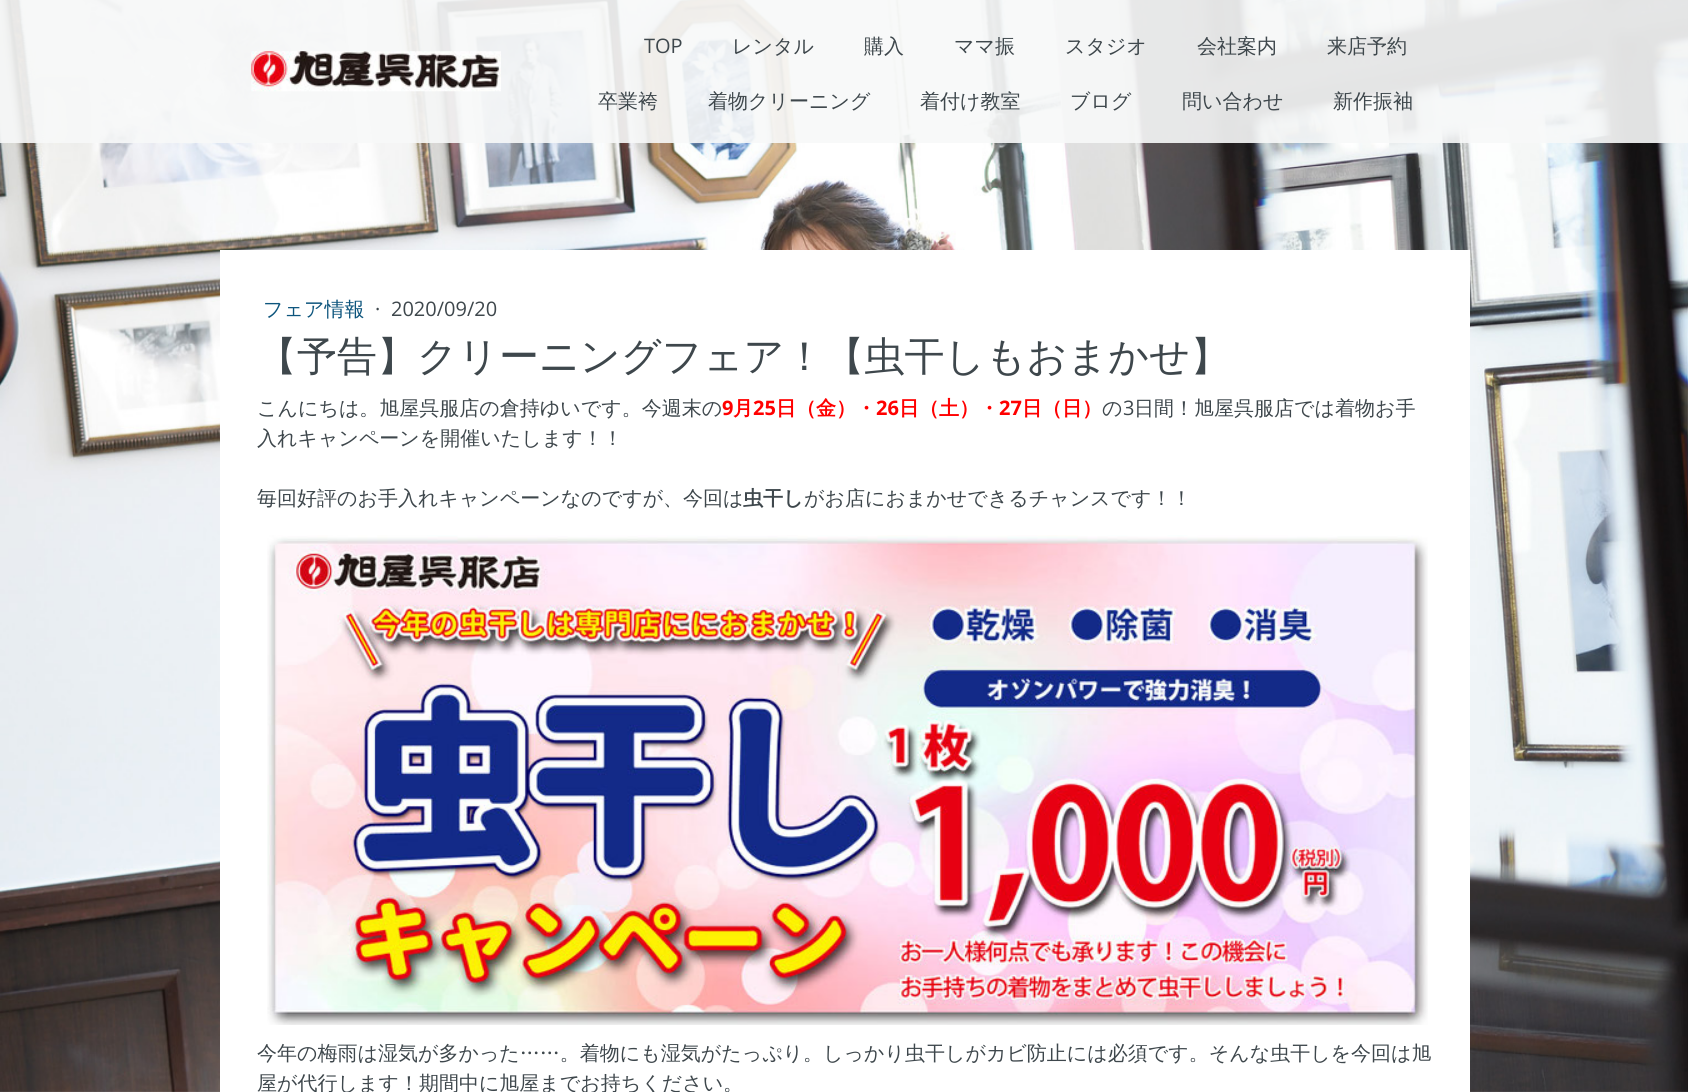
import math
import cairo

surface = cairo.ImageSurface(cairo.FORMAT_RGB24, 1688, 1092)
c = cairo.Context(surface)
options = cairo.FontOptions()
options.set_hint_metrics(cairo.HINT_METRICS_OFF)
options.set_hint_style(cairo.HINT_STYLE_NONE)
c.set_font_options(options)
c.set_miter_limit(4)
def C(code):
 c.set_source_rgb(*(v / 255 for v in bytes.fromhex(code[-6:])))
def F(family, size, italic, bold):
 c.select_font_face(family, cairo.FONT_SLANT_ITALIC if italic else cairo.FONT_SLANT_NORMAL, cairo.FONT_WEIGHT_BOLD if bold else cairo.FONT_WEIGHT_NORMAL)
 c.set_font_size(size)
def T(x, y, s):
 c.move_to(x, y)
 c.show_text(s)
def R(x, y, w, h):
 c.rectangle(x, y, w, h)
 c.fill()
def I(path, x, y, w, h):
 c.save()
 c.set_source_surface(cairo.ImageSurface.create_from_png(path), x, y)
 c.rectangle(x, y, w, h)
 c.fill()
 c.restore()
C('ffffff')
c.paint()
I('1.png',0,0,1688,1092)
c.set_source_rgba(0.969,0.973,0.973,0.9)
R(0,0,1688,143)
I('2.png',251,51,250,41)
F('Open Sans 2',20,0,0)
C('3e474c')
T(644,53,'TOP')
F('WenQuanYi Zen Hei Medium',20,0,0)
T(732,53,'レンタル')
T(864,53,'購入')
T(954,53,'ママ振')
T(1065,53,'スタジオ')
T(1197,53,'会社案内')
T(1327,53,'来店予約')
T(598,108,'卒業袴')
T(708,108,'着物クリーニング')
T(920,108,'着付け教室')
T(1070,108,'ブログ')
T(1182,108,'問い合わせ')
T(1333,108,'新作振袖')
C('ffffff')
R(220,250,1250,842)
C('0d557d')
T(263,316,'フェア情報')
F('Open Sans',20,0,0)
C('3e474c')
T(375,316,'·')
F('Open Sans 2',20,0,0)
T(391,316,'2020/09/20')
F('WenQuanYi Zen Hei Medium',40,0,0)
T(257,370,'【予告】クリーニングフェア！【虫干しもおまかせ】')
F('WenQuanYi Zen Hei Medium',20,0,0)
T(257,415,'こんにちは。旭屋呉服店の倉持ゆいです。今週末の')
F('Open Sans',20,0,1)
C('ff0000')
T(722,415,'9')
F('WenQuanYi Zen Hei',20,0,1)
T(733,415,'月')
F('Open Sans',20,0,1)
T(753,415,'25')
F('WenQuanYi Zen Hei',20,0,1)
T(776,415,'日（金）・')
F('Open Sans',20,0,1)
T(876,415,'26')
F('WenQuanYi Zen Hei',20,0,1)
T(899,415,'日（土）・')
F('Open Sans',20,0,1)
T(999,415,'27')
F('WenQuanYi Zen Hei',20,0,1)
T(1022,415,'日（日）')
F('WenQuanYi Zen Hei Medium',20,0,0)
C('3e474c')
T(1102,415,'の')
F('Open Sans 2',20,0,0)
T(1123,415,'3')
F('WenQuanYi Zen Hei Medium',20,0,0)
T(1134,415,'日間！旭屋呉服店では着物お手')
T(257,445,'入れキャンペーンを開催いたします！！')
T(257,505,'毎回好評のお手入れキャンペーンなのですが、今回は')
F('WenQuanYi Zen Hei',20,0,1)
T(743,505,'虫干し')
F('WenQuanYi Zen Hei Medium',20,0,0)
T(804,505,'がお店におまかせできるチャンスです！！')
I('3.png',267,535,1161,490)
T(257,1060,'今年の梅雨は湿気が多かった……。着物にも湿気がたっぷり。しっかり虫干しがカビ防止には必須です。そんな虫干しを今回は旭')
T(257,1090,'屋が代行します！期間中に旭屋までお持ちください。')
surface.write_to_png('o.png')
